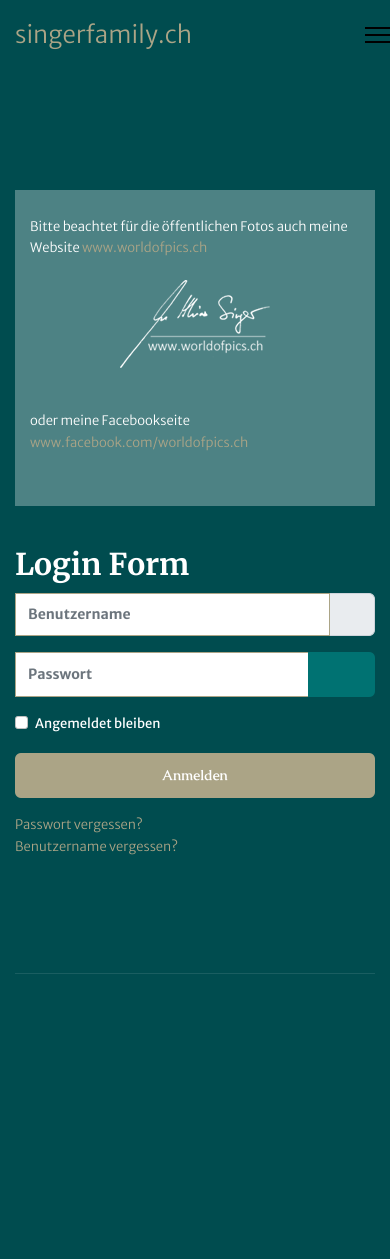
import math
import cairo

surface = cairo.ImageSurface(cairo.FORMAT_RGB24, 390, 1259)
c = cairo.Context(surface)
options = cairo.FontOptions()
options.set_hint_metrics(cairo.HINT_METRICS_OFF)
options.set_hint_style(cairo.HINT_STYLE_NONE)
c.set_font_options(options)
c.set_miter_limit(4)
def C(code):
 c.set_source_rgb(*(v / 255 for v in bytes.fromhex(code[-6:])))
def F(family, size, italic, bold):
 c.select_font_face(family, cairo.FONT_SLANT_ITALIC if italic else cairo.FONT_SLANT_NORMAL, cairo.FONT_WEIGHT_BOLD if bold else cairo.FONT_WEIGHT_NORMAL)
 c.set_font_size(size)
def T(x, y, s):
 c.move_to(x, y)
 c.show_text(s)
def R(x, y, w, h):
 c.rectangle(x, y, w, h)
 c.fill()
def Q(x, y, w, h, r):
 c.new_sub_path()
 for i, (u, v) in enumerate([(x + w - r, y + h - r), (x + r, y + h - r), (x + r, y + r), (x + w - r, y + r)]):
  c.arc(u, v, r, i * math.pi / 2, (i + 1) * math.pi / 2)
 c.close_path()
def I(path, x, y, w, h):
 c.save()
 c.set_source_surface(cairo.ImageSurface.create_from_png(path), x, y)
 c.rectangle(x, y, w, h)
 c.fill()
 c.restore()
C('004c4f')
c.paint()
F('Merriweather Sans Light',24,0,0)
C('aba486')
T(15,43,'singerfamily.ch')
C('000000')
R(365,27,25,2)
R(365,34,25,2)
R(365,41,25,2)
C('4d8284')
R(15,190,360,316)
F('Merriweather Sans Light',13,0,0)
C('ffffff')
T(30,231,'Bitte beachtet für die öffentlichen Fotos auch meine')
T(30,252,'Website')
C('aba486')
T(82,252,'www.worldofpics.ch')
I('1.png',120,280,150,88)
C('ffffff')
T(30,425,'oder meine Facebookseite')
C('aba486')
T(30,447,'www.facebook.com/worldofpics.ch')
F('Merriweather',30,0,1)
C('ffffff')
T(15,575,'Login Form')
C('e9ecef')
c.new_path()
c.move_to(329.5,593.5)
c.line_to(369,593.5)
c.curve_to(372,593.5,374.5,596,374.5,599)
c.line_to(374.5,630)
c.curve_to(374.5,633,372,635.5,369,635.5)
c.line_to(329.5,635.5)
c.close_path()
c.fill_preserve()
C('ced4da')
c.set_line_width(1)
c.stroke()
C('ffffff')
c.rectangle(15.5,593.5,314,42)
c.fill_preserve()
C('aba486')
c.stroke()
F('Merriweather Sans',14,0,1)
C('6c757d')
T(28,619,'Benutzername')
C('ffffff')
c.rectangle(15.5,652.5,293,44)
c.fill_preserve()
C('aba486')
c.stroke()
C('6c757d')
T(28,679,'Passwort')
C('007272')
c.new_path()
c.move_to(308,652)
c.line_to(369,652)
c.curve_to(372.5,652,375,654.5,375,658)
c.line_to(375,691)
c.curve_to(375,694.5,372.5,697,369,697)
c.line_to(308,697)
c.close_path()
c.fill()
C('ffffff')
Q(15,716,13,13,3)
c.fill()
Q(15.5,716.5,12,12,2.5)
c.set_source_rgba(0,0,0,0.25)
c.stroke()
F('Merriweather Sans',13,0,0)
C('ffffff')
T(35,728,'Angemeldet bleiben')
C('aba486')
Q(15,753,360,45,6)
c.fill()
F('Caudex',14,0,1)
C('ffffff')
T(162,780,'Anmelden')
F('Merriweather Sans Light',13,0,0)
C('aba486')
T(15,829,'Passwort vergessen?')
T(15,851,'Benutzername vergessen?')
C('1a5e61')
R(15,973,360,1)
surface.write_to_png('o.png')
